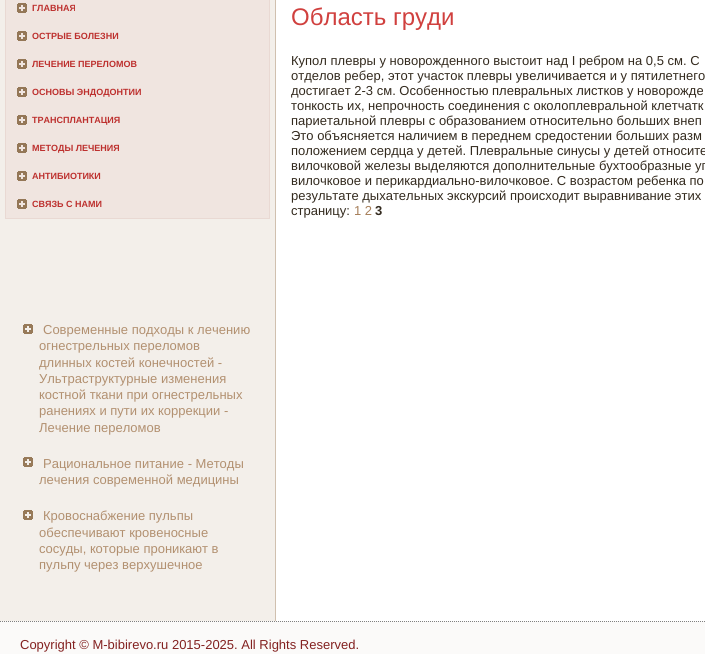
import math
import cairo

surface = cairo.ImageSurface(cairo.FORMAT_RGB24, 705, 654)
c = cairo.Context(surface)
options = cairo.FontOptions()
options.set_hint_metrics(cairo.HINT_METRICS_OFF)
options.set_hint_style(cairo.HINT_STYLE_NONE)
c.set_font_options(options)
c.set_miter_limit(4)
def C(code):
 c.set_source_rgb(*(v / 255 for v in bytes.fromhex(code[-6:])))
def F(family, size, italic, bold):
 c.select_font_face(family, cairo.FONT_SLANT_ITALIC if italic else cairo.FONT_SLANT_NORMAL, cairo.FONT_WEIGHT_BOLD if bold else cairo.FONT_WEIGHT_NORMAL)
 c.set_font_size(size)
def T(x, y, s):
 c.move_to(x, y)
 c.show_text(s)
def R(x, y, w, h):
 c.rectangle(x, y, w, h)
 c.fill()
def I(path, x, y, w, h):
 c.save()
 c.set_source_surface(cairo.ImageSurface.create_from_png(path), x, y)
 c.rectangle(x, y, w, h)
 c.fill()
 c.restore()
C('fbfaf9')
c.paint()
C('ffffff')
R(276,0,429,621)
C('f3efea')
R(0,0,275,621)
C('d0c0af')
R(275,0,1,621)
C('f0e5e0')
c.rectangle(5.5,-.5,264,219)
c.fill_preserve()
C('e9d9d3')
c.set_line_width(1)
c.stroke()
I('1.png',17,3,10,10)
F('Liberation Sans',9,0,1)
C('bd302e')
T(32,11,'ГЛАВНАЯ')
I('1.png',17,31,10,10)
T(32,39,'ОСТРЫЕ БОЛЕЗНИ')
I('1.png',17,59,10,10)
T(32,67,'ЛЕЧЕНИЕ ПЕРЕЛОМОВ')
I('1.png',17,87,10,10)
T(32,95,'ОСНОВЫ ЭНДОДОНТИИ')
I('1.png',17,115,10,10)
T(32,123,'ТРАНСПЛАНТАЦИЯ')
I('1.png',17,143,10,10)
T(32,151,'МЕТОДЫ ЛЕЧЕНИЯ')
I('1.png',17,171,10,10)
T(32,179,'АНТИБИОТИКИ')
I('1.png',17,199,10,10)
T(32,207,'СВЯЗЬ С НАМИ')
I('2.png',23,324,10,10)
F('Liberation Sans',13,0,0)
C('b29070')
T(43,334,'Современные подходы к лечению')
T(39,350,'огнестрельных переломов')
T(39,367,'длинных костей конечностей -')
T(39,383,'Ультраструктурные изменения')
T(39,399,'костной ткани при огнестрельных')
T(39,415,'ранениях и пути их коррекции -')
T(39,432,'Лечение переломов')
I('2.png',23,457,10,10)
T(43,468,'Рациональное питание - Методы')
T(39,484,'лечения современной медицины')
I('2.png',23,510,10,10)
T(43,520,'Кровоснабжение пульпы')
T(39,537,'обеспечивают кровеносные')
T(39,553,'сосуды, которые проникают в')
T(39,569,'пульпу через верхушечное')
F('Liberation Sans',24,0,0)
C('d0403e')
T(291,25,'Область груди')
F('Liberation Sans',13,0,0)
C('332a1e')
T(291,65,'Купол плевры у новорожденного выстоит над I ребром на 0,5 см. С')
T(291,80,'отделов ребер, этот участок плевры увеличивается и у пятилетнего')
T(291,95,'достигает 2-3 см. Особенностью плевральных листков у новорожде')
T(291,110,'тонкость их, непрочность соединения с околоплевральной клетчатк')
T(291,125,'париетальной плевры с образованием относительно больших внеп')
T(291,140,'Это объясняется наличием в переднем средостении больших разм')
T(291,155,'положением сердца у детей. Плевральные синусы у детей относите')
T(291,170,'вилочковой железы выделяются дополнительные бухтообразные уг')
T(291,185,'вилочковое и перикардиально-вилочковое. С возрастом ребенка по')
T(291,200,'результате дыхательных экскурсий происходит выравнивание этих')
T(291,215,'страницу:')
C('a67e59')
T(354,215,'1 2')
F('Liberation Sans',13,0,1)
C('332a1e')
T(375,215,'3')
c.new_path()
c.move_to(0,621.5)
c.line_to(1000,621.5)
C('808080')
c.set_dash([1,1])
c.stroke()
F('Liberation Sans',13,0,0)
C('832120')
T(20,649,'Copyright © M-bibirevo.ru 2015-2025. All Rights Reserved.')
surface.write_to_png('o.png')
